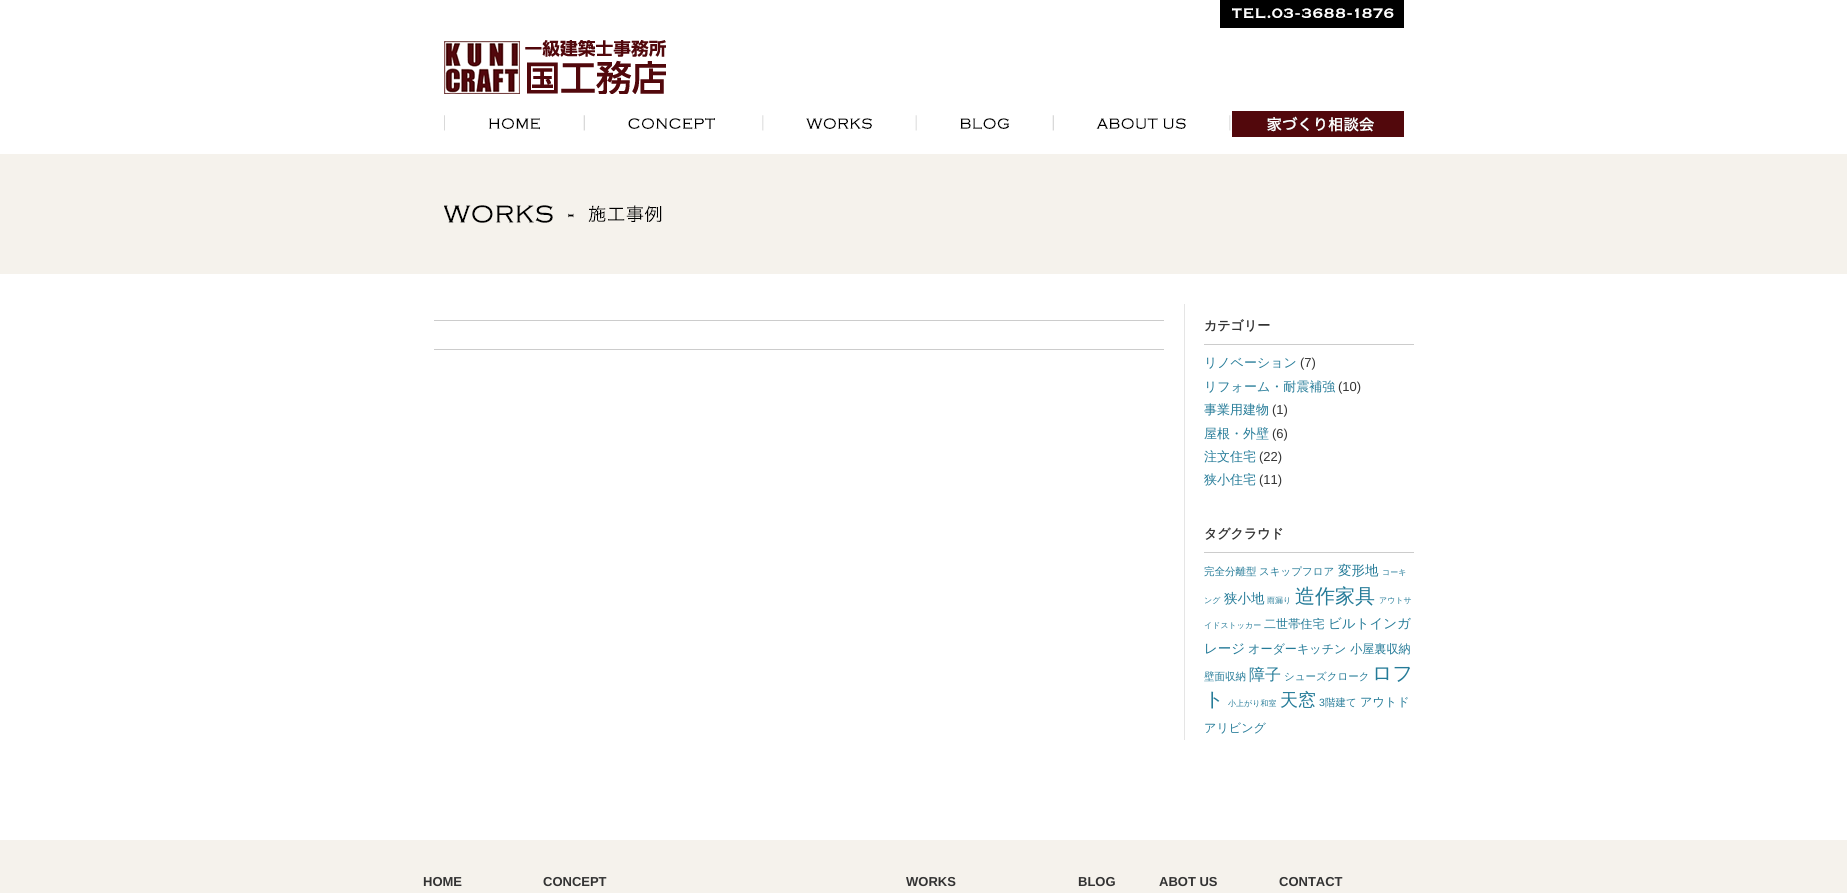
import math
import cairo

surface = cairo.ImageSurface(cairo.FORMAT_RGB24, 1847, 893)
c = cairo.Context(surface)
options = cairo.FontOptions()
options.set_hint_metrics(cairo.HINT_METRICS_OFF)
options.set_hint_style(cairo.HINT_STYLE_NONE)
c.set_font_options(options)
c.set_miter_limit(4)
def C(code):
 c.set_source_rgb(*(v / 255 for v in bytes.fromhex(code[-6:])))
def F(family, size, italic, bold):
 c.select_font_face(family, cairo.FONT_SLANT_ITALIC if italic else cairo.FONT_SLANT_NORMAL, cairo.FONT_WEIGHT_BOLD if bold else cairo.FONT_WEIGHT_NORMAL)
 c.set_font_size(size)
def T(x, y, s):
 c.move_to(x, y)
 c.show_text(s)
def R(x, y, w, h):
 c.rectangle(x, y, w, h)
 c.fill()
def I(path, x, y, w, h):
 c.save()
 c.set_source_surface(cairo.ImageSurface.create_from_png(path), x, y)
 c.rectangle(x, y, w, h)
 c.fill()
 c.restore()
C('ffffff')
c.paint()
I('1.png',1220,0,184,28)
I('2.png',444,40,222,54)
I('3.png',444,115,140,16)
I('4.png',584,115,131,16)
I('5.png',762,115,154,16)
I('6.png',916,115,137,16)
I('7.png',1053,115,133,16)
I('8.png',1229,111,175,26)
C('f5f2ec')
R(0,154,1847,120)
I('9.png',444,205,218,18)
C('cccccc')
R(434,320,730,1)
R(434,349,730,1)
C('e5e5e5')
R(1184,304,1,436)
C('cccccc')
R(1204,344,210,1)
F('WenQuanYi Zen Hei',13,0,1)
C('333333')
T(1204,330,'カテゴリー')
F('WenQuanYi Zen Hei Medium',13,0,0)
C('257b98')
T(1204,367,'リノベーション')
F('Liberation Sans',13,0,0)
C('333333')
T(1300,367,'(7)')
F('WenQuanYi Zen Hei Medium',13,0,0)
C('257b98')
T(1204,391,'リフォーム・耐震補強')
F('Liberation Sans',13,0,0)
C('333333')
T(1338,391,'(10)')
F('WenQuanYi Zen Hei Medium',13,0,0)
C('257b98')
T(1204,414,'事業用建物')
F('Liberation Sans',13,0,0)
C('333333')
T(1272,414,'(1)')
F('WenQuanYi Zen Hei Medium',13,0,0)
C('257b98')
T(1204,438,'屋根・外壁')
F('Liberation Sans',13,0,0)
C('333333')
T(1272,438,'(6)')
F('WenQuanYi Zen Hei Medium',13,0,0)
C('257b98')
T(1204,461,'注文住宅')
F('Liberation Sans',13,0,0)
C('333333')
T(1259,461,'(22)')
F('WenQuanYi Zen Hei Medium',13,0,0)
C('257b98')
T(1204,484,'狭小住宅')
F('Liberation Sans',13,0,0)
C('333333')
T(1259,484,'(11)')
C('cccccc')
R(1204,552,210,1)
F('WenQuanYi Zen Hei',13,0,1)
C('333333')
T(1204,538,'タグクラウド')
F('WenQuanYi Zen Hei Medium',10.5,0,0)
C('257b98')
T(1204,575,'完全分離型')
T(1259,575,'スキップフロア')
F('WenQuanYi Zen Hei Medium',13.5,0,0)
T(1338,575,'変形地')
F('WenQuanYi Zen Hei Medium',8,0,0)
T(1382,575,'コーキ')
T(1204,603,'ング')
F('WenQuanYi Zen Hei Medium',13.5,0,0)
T(1224,603,'狭小地')
F('WenQuanYi Zen Hei Medium',8,0,0)
T(1267,603,'雨漏り')
F('WenQuanYi Zen Hei Medium',20,0,0)
T(1295,603,'造作家具')
F('WenQuanYi Zen Hei Medium',8,0,0)
T(1379,603,'アウトサ')
T(1204,628,'イドストッカー')
F('WenQuanYi Zen Hei Medium',12.1,0,0)
T(1264,628,'二世帯住宅')
F('WenQuanYi Zen Hei Medium',13.5,0,0)
T(1328,628,'ビルトインガ')
T(1204,653,'レージ')
F('WenQuanYi Zen Hei Medium',12.1,0,0)
T(1248,653,'オーダーキッチン 小屋裏収納')
F('WenQuanYi Zen Hei Medium',10.5,0,0)
T(1204,680,'壁面収納')
F('WenQuanYi Zen Hei Medium',16,0,0)
T(1249,680,'障子')
F('WenQuanYi Zen Hei Medium',10.5,0,0)
T(1284,680,'シューズクローク')
F('WenQuanYi Zen Hei Medium',20,0,0)
T(1372,680,'ロフ')
T(1204,706,'ト')
F('WenQuanYi Zen Hei Medium',8,0,0)
T(1228,706,'小上がり和室')
F('WenQuanYi Zen Hei Medium',18,0,0)
T(1280,706,'天窓')
F('Liberation Sans',10.5,0,0)
T(1319,706,'3')
F('WenQuanYi Zen Hei Medium',10.5,0,0)
T(1325,706,'階建て')
F('WenQuanYi Zen Hei Medium',12.1,0,0)
T(1360,706,'アウトド')
T(1204,732,'アリビング')
C('f5f2ec')
R(0,840,1847,53)
F('Liberation Sans',13,0,1)
C('333333')
T(423,886,'HOME')
T(543,886,'CONCEPT')
T(906,886,'WORKS')
T(1078,886,'BLOG')
T(1159,886,'ABOT US')
T(1279,886,'CONTACT')
surface.write_to_png('o.png')
